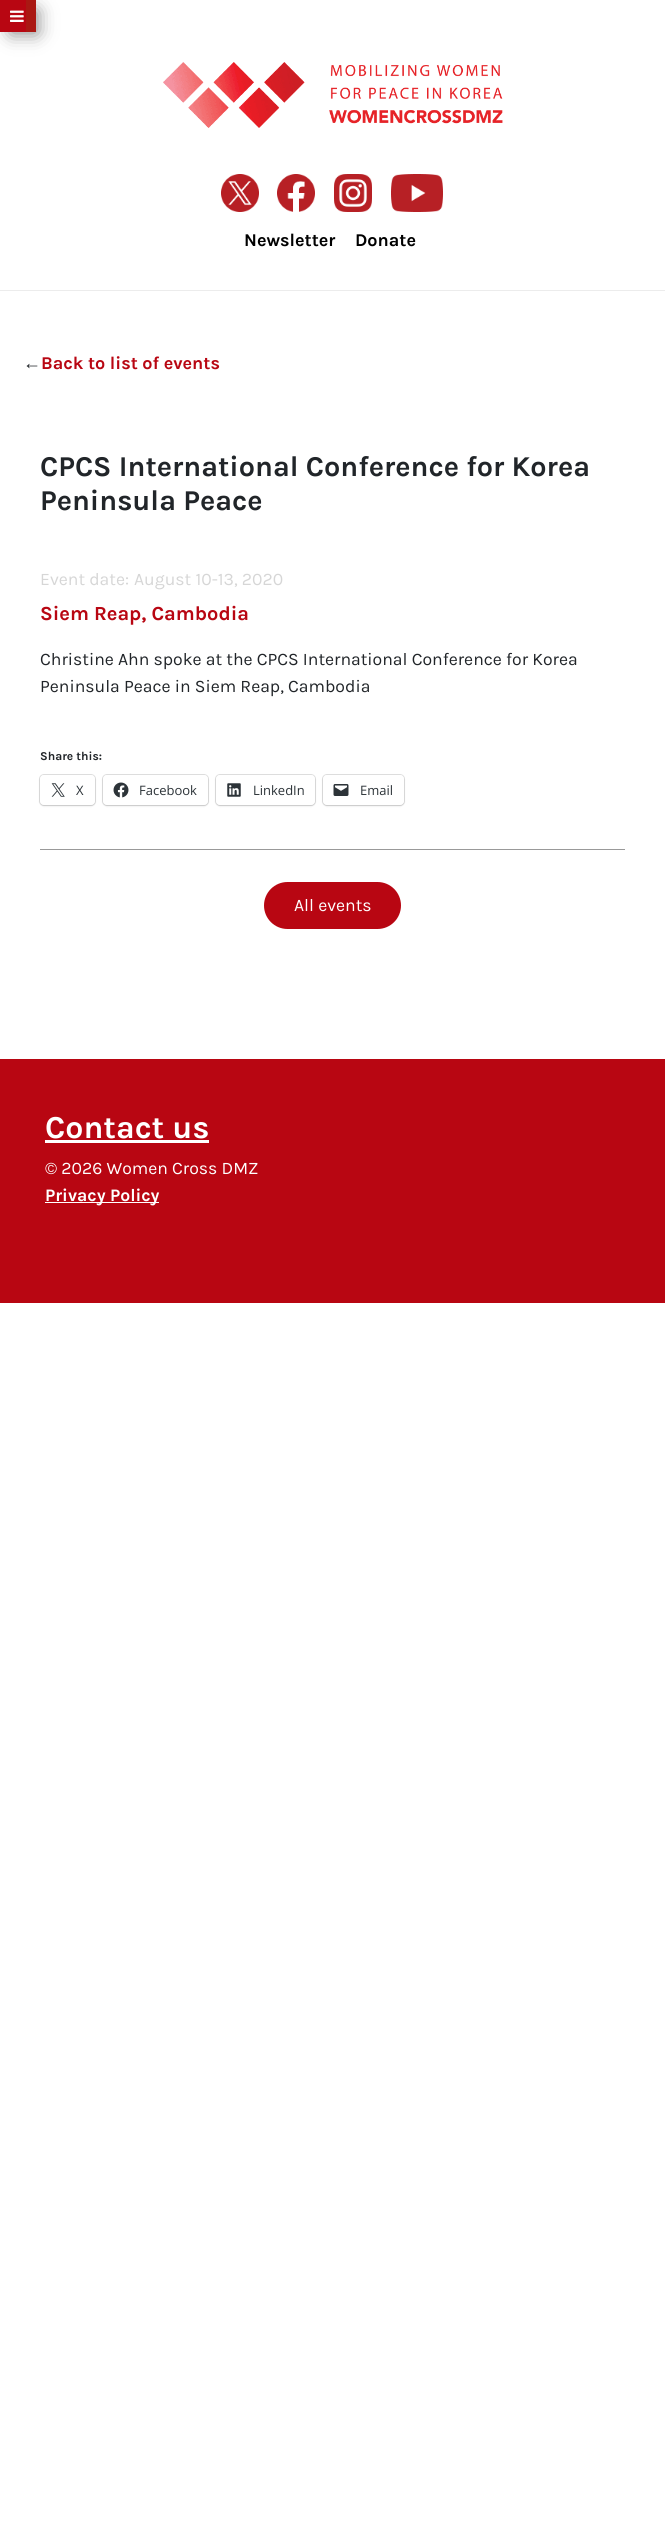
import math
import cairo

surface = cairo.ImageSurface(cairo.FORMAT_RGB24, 665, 2540)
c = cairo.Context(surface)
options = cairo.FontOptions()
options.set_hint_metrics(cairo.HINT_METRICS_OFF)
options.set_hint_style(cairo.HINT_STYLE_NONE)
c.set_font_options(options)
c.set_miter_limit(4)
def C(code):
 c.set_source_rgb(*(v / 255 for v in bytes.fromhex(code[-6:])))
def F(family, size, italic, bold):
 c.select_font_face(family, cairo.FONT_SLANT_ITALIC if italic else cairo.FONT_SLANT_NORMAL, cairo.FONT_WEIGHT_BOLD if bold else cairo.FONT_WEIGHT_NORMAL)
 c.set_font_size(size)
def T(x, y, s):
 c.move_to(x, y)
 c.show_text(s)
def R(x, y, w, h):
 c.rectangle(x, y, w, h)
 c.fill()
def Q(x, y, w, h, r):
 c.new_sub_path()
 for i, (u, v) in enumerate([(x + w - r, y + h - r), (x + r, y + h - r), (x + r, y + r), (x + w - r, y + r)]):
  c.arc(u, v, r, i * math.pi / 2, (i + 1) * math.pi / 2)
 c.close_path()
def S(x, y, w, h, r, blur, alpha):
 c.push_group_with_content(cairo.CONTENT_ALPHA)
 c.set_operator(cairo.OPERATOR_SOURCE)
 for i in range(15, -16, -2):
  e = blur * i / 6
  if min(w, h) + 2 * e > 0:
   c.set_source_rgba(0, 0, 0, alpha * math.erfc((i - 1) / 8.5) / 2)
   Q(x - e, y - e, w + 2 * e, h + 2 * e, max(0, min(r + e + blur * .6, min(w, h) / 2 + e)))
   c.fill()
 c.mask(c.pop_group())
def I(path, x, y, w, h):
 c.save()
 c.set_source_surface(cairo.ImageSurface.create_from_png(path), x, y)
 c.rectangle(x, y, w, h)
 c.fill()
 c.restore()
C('ffffff')
c.paint()
C('000000')
S(11,11,26,22,0,9.5,.5)
C('aa1813')
R(26,0,10,32)
C('b80612')
R(0,0,26,32)
I('1.png',10,10,14,12)
I('2.png',163,62,340,66)
I('3.png',221,174,38,38)
I('4.png',277,174,38,38)
I('5.png',334,174,38,38)
I('6.png',391,174,52,38)
F('Karla',18,0,1)
C('000000')
T(244,246,'Newsletter')
T(355,246,'Donate')
C('ececec')
R(0,290,665,1)
F('Liberation Sans',18,0,0)
C('212529')
T(23,369,'←')
F('Karla',18,0,1)
C('b80612')
T(41,369,'Back to list of events')
F('Karla',28.75,0,1)
C('212529')
T(40,476,'CPCS International Conference for Korea')
T(40,510,'Peninsula Peace')
F('Karla',17.6,0,0)
C('d6d6d6')
T(40,585,'Event date:')
T(134,585,'August 10-13, 2020')
F('Karla',20,0,1)
C('b80612')
T(40,620,'Siem Reap, Cambodia')
F('Karla',17.6,0,0)
C('212529')
T(40,665,'Christine Ahn spoke at the CPCS International Conference for Korea')
T(40,692,'Peninsula Peace in Siem Reap, Cambodia')
F('Karla',12,0,1)
T(40,760,'Share this:')
Q(39.5,774.5,56,31,4.5)
C('e0e0e0')
c.set_line_width(1)
c.stroke()
C('000000')
S(40,776,55,30,4,1,.12)
C('ffffff')
Q(40,775,55,30,4)
c.fill()
I('7.png',51,783,14,14)
F('Open Sans',13,0,0)
C('2c3338')
T(76,795,'X')
Q(102.5,774.5,106,31,4.5)
C('e0e0e0')
c.stroke()
C('000000')
S(103,776,105,30,4,1,.12)
C('ffffff')
Q(103,775,105,30,4)
c.fill()
I('8.png',113,782,16,16)
C('2c3338')
T(139,795,'Facebook')
Q(215.5,774.5,100,31,4.5)
C('e0e0e0')
c.stroke()
C('000000')
S(216,776,99,30,4,1,.12)
C('ffffff')
Q(216,775,99,30,4)
c.fill()
I('9.png',227,783,14,14)
C('2c3338')
T(253,795,'LinkedIn')
Q(322.5,774.5,82,31,4.5)
C('e0e0e0')
c.stroke()
C('000000')
S(323,776,81,30,4,1,.12)
C('ffffff')
Q(323,775,81,30,4)
c.fill()
I('10.png',333,784,16,12)
C('2c3338')
T(360,795,'Email')
C('999999')
R(40,849,585,1)
C('b80612')
Q(264,882,137,47,23.5)
c.fill()
F('Karla',17.6,0,0)
C('ffffff')
T(294,911,'All events')
C('b80612')
R(0,1059,665,244)
F('Karla',32,0,1)
C('ffffff')
T(45,1138,'Contact us')
R(45,1140,164,3)
F('Karla',17.6,0,0)
T(45,1174,'© 2026 Women Cross DMZ')
R(45,1202,114,1)
F('Karla',17.6,0,1)
T(45,1201,'Privacy Policy')
surface.write_to_png('o.png')
